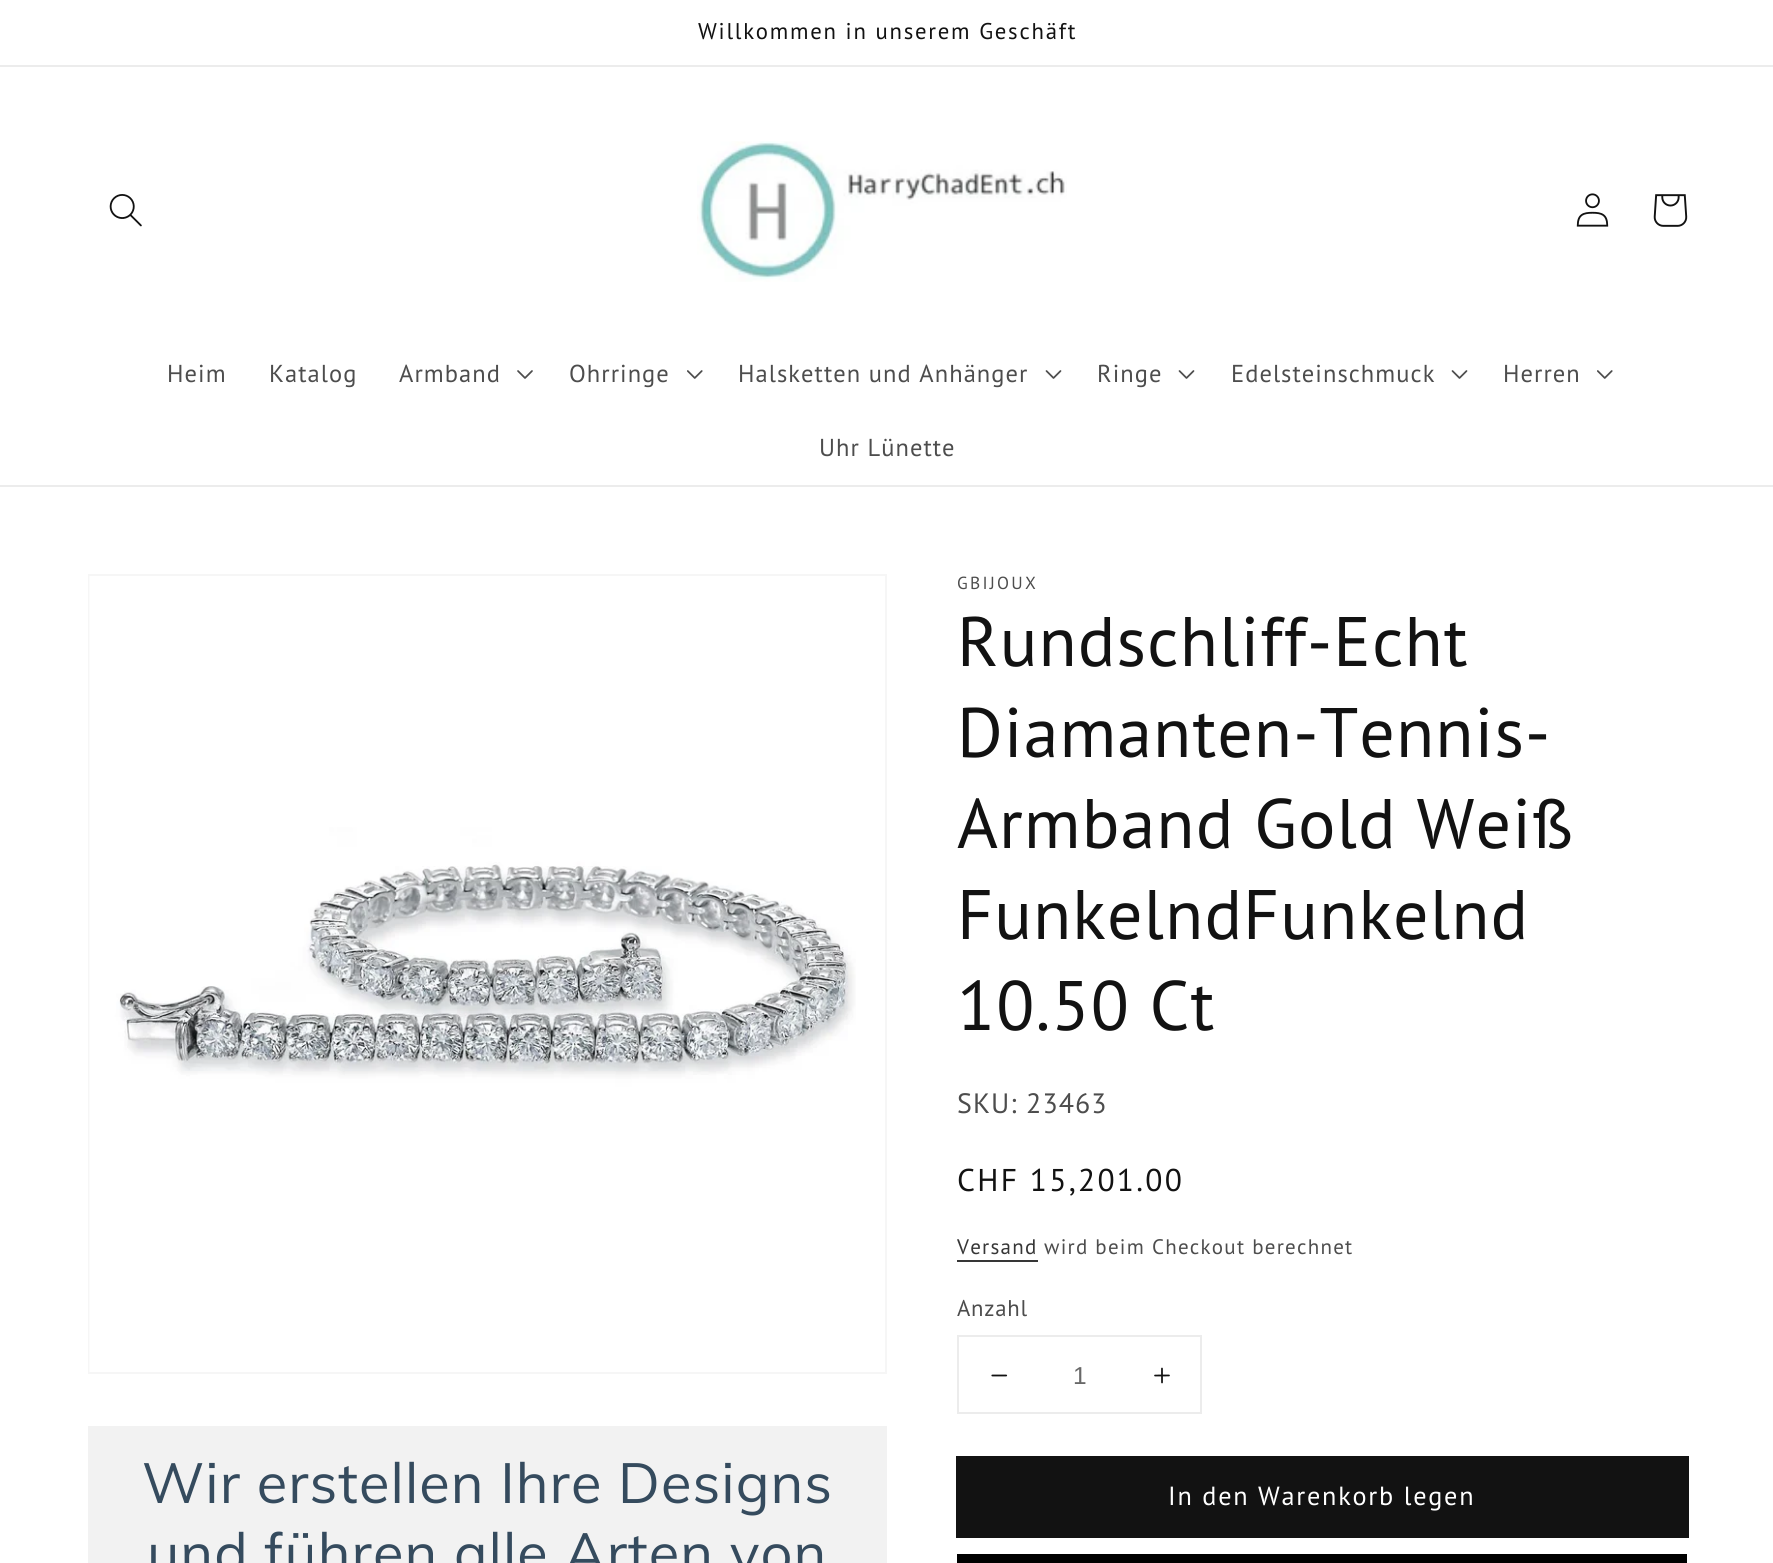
import math
import cairo

surface = cairo.ImageSurface(cairo.FORMAT_RGB24, 1773, 1563)
c = cairo.Context(surface)
options = cairo.FontOptions()
options.set_hint_metrics(cairo.HINT_METRICS_OFF)
options.set_hint_style(cairo.HINT_STYLE_NONE)
c.set_font_options(options)
c.set_miter_limit(4)
def C(code):
 c.set_source_rgb(*(v / 255 for v in bytes.fromhex(code[-6:])))
def F(family, size, italic, bold):
 c.select_font_face(family, cairo.FONT_SLANT_ITALIC if italic else cairo.FONT_SLANT_NORMAL, cairo.FONT_WEIGHT_BOLD if bold else cairo.FONT_WEIGHT_NORMAL)
 c.set_font_size(size)
def T(x, y, s):
 c.move_to(x, y)
 c.show_text(s)
def L(x, y, s, letter, word):
 c.move_to(x, y)
 for ch in s:
  c.show_text(ch)
  c.rel_move_to(letter + word * (ch == ' '), 0)
def R(x, y, w, h):
 c.rectangle(x, y, w, h)
 c.fill()
def I(path, x, y, w, h):
 c.save()
 c.set_source_surface(cairo.ImageSurface.create_from_png(path), x, y)
 c.rectangle(x, y, w, h)
 c.fill()
 c.restore()
C('ffffff')
c.paint()
C('ececec')
R(0,65,1773,2)
F('PT Sans',22.75,0,0)
C('121212')
L(698,39,'Willkommen in unserem Geschäft',1.75,0)
C('ececec')
R(0,485,1773,2)
I('1.png',109,194,33,33)
I('2.png',697,141,370,141)
I('3.png',1576,193,33,34)
I('4.png',1653,194,35,33)
F('PT Sans',24.5,0,0)
C('4d4d4d')
L(167,382,'Heim',1.05,0)
L(269,382,'Katalog',1.05,0)
L(399,382,'Armband',1.05,0)
I('5.png',517,370,16,9)
L(569,382,'Ohrringe',1.05,0)
I('6.png',687,370,16,9)
L(738,382,'Halsketten und Anhänger',1.05,0)
I('7.png',1045,370,17,9)
L(1097,382,'Ringe',1.05,0)
I('7.png',1178,370,17,9)
L(1231,382,'Edelsteinschmuck',1.05,0)
I('7.png',1451,370,17,9)
L(1503,382,'Herren',1.05,0)
I('6.png',1597,370,16,9)
L(819,456,'Uhr Lünette',1.05,0)
c.rectangle(89,575,797,798)
C('f6f6f6')
c.stroke()
I('8.png',89,576,767,796)
C('f2f2f2')
R(88,1426,799,137)
F('Muli',56,0,0)
C('354b5e')
L(142,1503,'Wir erstellen Ihre Designs',1.05,0)
L(147,1573,'und führen alle Arten von',1.05,0)
F('PT Sans',17.5,0,0)
C('4d4d4d')
L(957,589,'GBIJOUX',2.25,0)
F('PT Sans',70,0,0)
C('121212')
L(957,666,'Rundschliff-Echt',1.05,0)
L(957,757,'Diamanten-Tennis-',1.05,0)
L(957,848,'Armband Gold Weiß',1.05,0)
L(957,939,'FunkelndFunkelnd',1.05,0)
L(957,1030,'10.50 Ct',1.05,0)
F('PT Sans',28,0,0)
C('4d4d4d')
L(957,1113,'SKU: 23463',1.05,0)
F('PT Sans',31.5,0,0)
C('121212')
L(957,1191,'CHF 15,201.00',2.25,0)
F('PT Sans',21,0,0)
C('363636')
L(957,1254,'Versand',1.25,0)
R(957,1260,81,2)
C('4d4d4d')
L(1044,1254,'wird beim Checkout berechnet',1.25,0)
F('PT Sans',22.75,0,0)
L(957,1316,'Anzahl',.75,0)
c.rectangle(958,1336,243,77)
C('ececec')
c.stroke()
I('9.png',991,1374,17,3)
F('Liberation Sans',24.5,0,0)
C('686868')
T(1073,1384,'1')
I('10.png',1154,1367,16,17)
c.rectangle(957,1457,731,80)
C('121212')
c.stroke()
R(958,1458,729,78)
F('PT Sans',26.25,0,0)
C('ffffff')
L(1168,1505,'In den Warenkorb legen',1.75,0)
C('000000')
R(957,1554,730,9)
surface.write_to_png('o.png')
